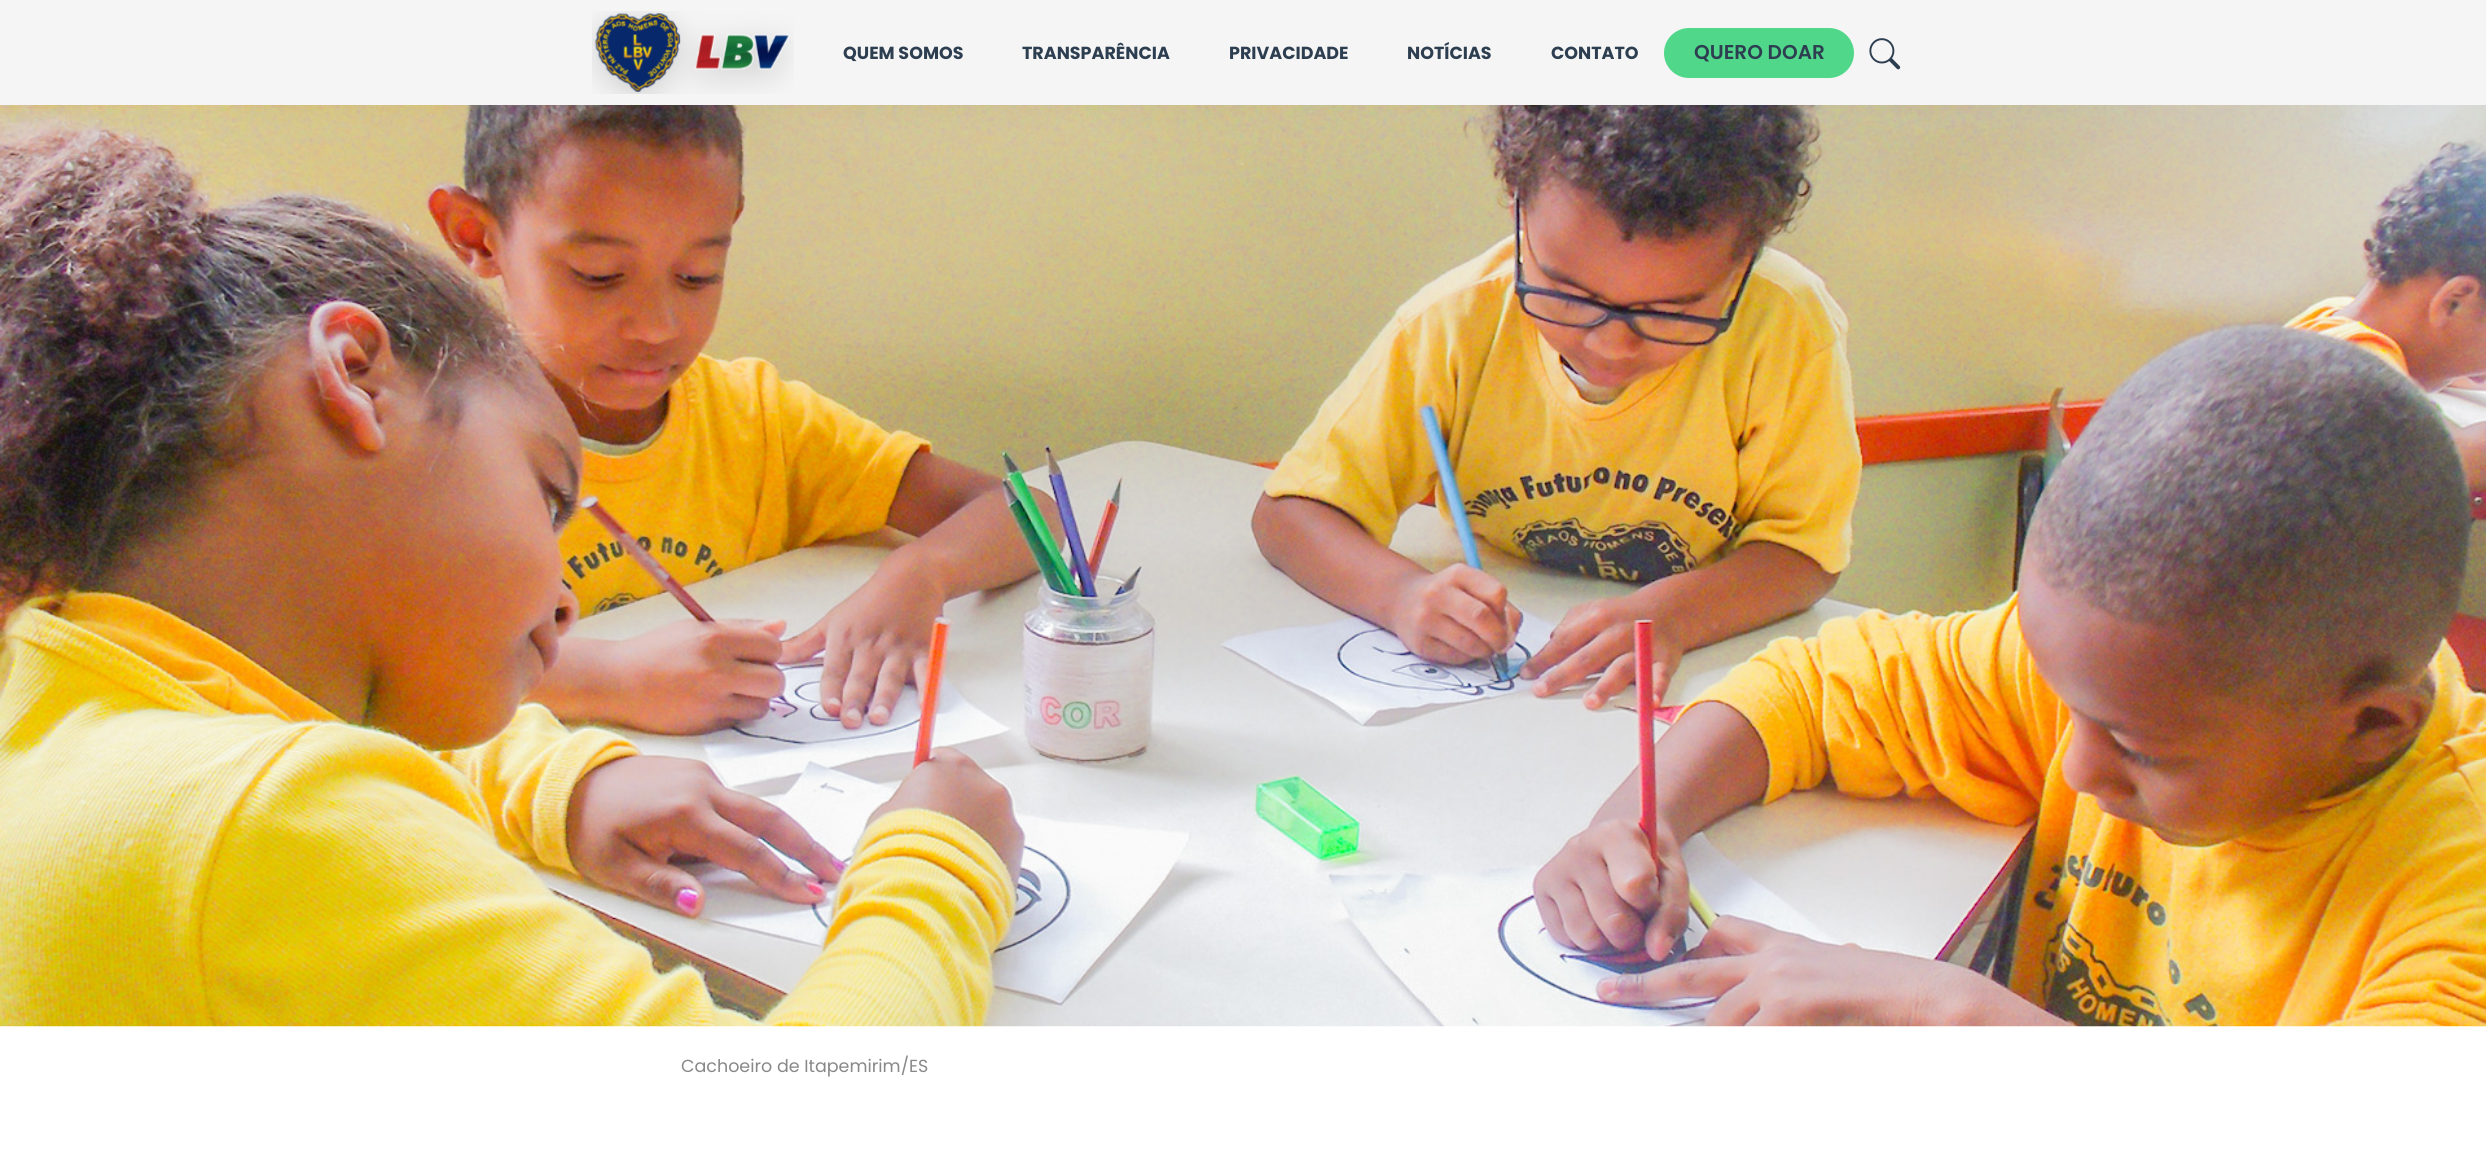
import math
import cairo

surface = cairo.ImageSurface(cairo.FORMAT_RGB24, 2486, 1151)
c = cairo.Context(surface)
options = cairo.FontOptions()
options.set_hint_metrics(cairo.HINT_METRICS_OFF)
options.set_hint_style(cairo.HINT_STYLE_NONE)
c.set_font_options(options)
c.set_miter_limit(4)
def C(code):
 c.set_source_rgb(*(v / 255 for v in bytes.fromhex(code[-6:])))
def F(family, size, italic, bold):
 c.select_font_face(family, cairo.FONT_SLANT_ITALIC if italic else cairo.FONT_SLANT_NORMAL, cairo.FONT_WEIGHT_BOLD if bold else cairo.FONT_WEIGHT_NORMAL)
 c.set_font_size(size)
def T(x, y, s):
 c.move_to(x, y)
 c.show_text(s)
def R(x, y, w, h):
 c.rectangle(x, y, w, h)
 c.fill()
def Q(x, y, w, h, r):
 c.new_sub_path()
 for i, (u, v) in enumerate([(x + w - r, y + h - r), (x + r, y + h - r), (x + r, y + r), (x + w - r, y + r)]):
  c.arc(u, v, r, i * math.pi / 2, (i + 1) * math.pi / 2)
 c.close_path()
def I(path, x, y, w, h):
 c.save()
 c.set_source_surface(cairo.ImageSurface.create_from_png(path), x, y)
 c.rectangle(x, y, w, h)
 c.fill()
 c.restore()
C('ffffff')
c.paint()
C('f5f5f5')
R(0,0,2486,105)
I('1.png',592,11,202,83)
F('Poppins',17.5,0,1)
C('2d3e50')
T(843,59,'QUEM SOMOS')
T(1022,59,'TRANSPARÊNCIA')
T(1229,59,'PRIVACIDADE')
T(1407,59,'NOTÍCIAS')
T(1551,59,'CONTATO')
C('50d78a')
Q(1664,28,190,50,25)
c.fill()
F('Poppins SemiBold',20,0,0)
C('2d3e50')
T(1694,59,'QUERO DOAR')
I('2.png',1869,38,32,32)
I('3.png',0,105,2486,922)
F('Poppins',17.5,0,0)
C('888888')
T(681,1072,'Cachoeiro de Itapemirim/ES')
surface.write_to_png('o.png')
